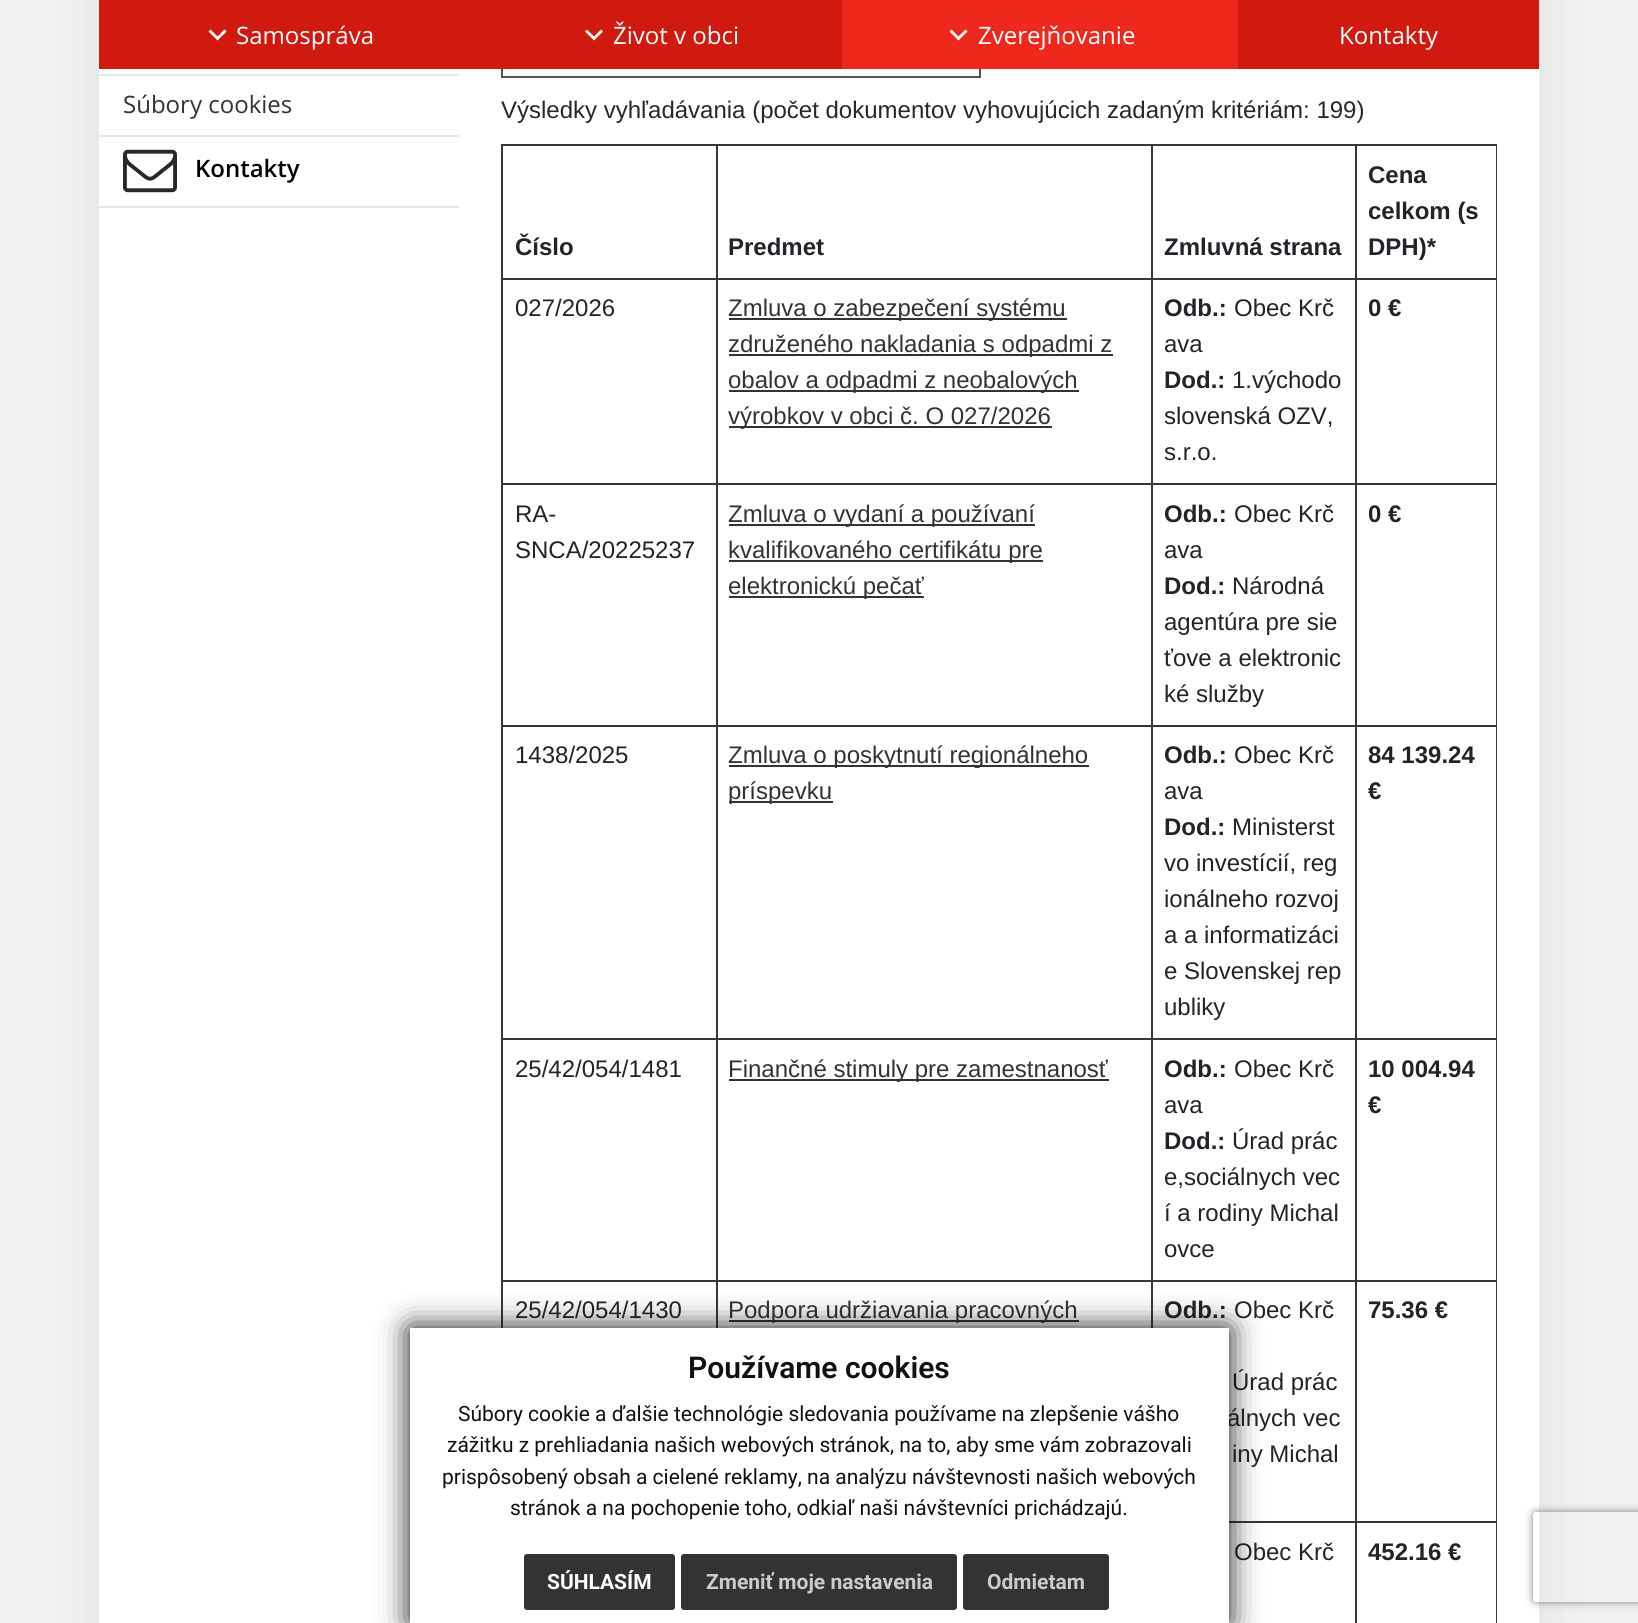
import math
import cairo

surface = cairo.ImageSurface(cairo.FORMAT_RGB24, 1638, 1623)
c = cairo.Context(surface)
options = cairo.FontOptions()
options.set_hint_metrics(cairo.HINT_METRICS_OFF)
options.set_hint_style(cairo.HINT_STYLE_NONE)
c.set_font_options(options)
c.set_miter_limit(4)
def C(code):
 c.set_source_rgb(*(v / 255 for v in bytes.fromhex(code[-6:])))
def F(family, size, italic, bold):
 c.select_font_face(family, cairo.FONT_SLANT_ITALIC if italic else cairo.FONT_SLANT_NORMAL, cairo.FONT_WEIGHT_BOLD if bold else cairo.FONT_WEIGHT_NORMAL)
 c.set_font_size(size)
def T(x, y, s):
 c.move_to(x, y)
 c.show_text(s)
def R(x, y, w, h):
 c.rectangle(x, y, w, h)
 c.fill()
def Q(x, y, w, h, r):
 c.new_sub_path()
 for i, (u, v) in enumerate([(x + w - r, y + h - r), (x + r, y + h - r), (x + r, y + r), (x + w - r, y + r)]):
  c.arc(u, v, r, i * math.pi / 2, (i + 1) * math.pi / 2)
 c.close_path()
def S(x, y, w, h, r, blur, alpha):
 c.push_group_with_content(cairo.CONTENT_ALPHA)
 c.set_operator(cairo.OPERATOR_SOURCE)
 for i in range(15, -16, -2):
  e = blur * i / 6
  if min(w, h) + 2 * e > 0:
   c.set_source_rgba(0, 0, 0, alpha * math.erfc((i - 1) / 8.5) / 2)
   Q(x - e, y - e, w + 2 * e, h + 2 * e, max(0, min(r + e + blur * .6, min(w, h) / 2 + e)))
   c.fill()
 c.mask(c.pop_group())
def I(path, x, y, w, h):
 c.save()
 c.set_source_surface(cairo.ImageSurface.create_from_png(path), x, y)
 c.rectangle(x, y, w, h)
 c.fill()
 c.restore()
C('f1f1f1')
c.paint()
C('000000')
S(99,-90,1440,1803,0,30,.07)
C('ffffff')
R(99,69,1440,1554)
c.rectangle(502,22,478,55)
C('545454')
c.stroke()
C('d0190f')
R(99,0,1440,69)
C('ffffff')
c.new_path()
c.move_to(224.5,29.5)
c.line_to(226.5,31.5)
c.line_to(217.5,40.5)
c.line_to(208.5,31.5)
c.line_to(210.5,29.5)
c.line_to(217.5,36.5)
c.close_path()
c.fill()
F('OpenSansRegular',24,0,0)
T(236,44,'Samospráva')
c.new_path()
c.move_to(601,29.5)
c.line_to(603,31.5)
c.line_to(594,40.5)
c.line_to(585,31.5)
c.line_to(587,29.5)
c.line_to(594,36.5)
c.close_path()
c.fill()
T(613,44,'Život v obci')
C('ef281d')
R(842,0,396,69)
C('ffffff')
c.new_path()
c.move_to(965.5,29.5)
c.line_to(967.5,31.5)
c.line_to(958.5,40.5)
c.line_to(949.5,31.5)
c.line_to(951.5,29.5)
c.line_to(958.5,36.5)
c.close_path()
c.fill()
T(978,44,'Zverejňovanie')
T(1339,44,'Kontakty')
C('e6e6e6')
R(99,74,360,2)
R(99,135,360,2)
C('333333')
T(123,113,'Súbory cookies')
C('e6e6e6')
R(99,206,360,2)
I('1.png',123,149,54,44)
F('Open Sans SemiBold',24,0,0)
C('000000')
T(195,177,'Kontakty')
F('Liberation Sans',24,0,0)
C('282828')
T(501,118,'Výsledky vyhľadávania (počet dokumentov vyhovujúcich zadaným kritériám: 199)')
C('373737')
R(501,144,996,2)
F('Liberation Sans',24,0,1)
C('212529')
T(515,255,'Číslo')
T(728,255,'Predmet')
T(1164,255,'Zmluvná strana')
T(1368,183,'Cena')
T(1368,219,'celkom (s')
T(1368,255,'DPH)*')
C('373737')
R(501,278,996,2)
F('Liberation Sans',24,0,0)
C('212529')
T(515,316,'027/2026')
C('333333')
R(729,318,338,2)
T(728,316,'Zmluva o zabezpečení systému')
R(729,354,384,2)
T(728,352,'združeného nakladania s odpadmi z')
R(729,390,350,2)
T(728,388,'obalov a odpadmi z neobalových')
R(729,426,323,2)
T(728,424,'výrobkov v obci č. O 027/2026')
F('Liberation Sans',24,0,1)
C('212529')
T(1164,316,'Odb.:')
F('Liberation Sans',24,0,0)
T(1234,316,'Obec Krč')
T(1164,352,'ava')
F('Liberation Sans',24,0,1)
T(1164,388,'Dod.:')
F('Liberation Sans',24,0,0)
T(1232,388,'1.východo')
T(1164,424,'slovenská OZV,')
T(1164,460,'s.r.o.')
F('Liberation Sans',24,0,1)
T(1368,316,'0 €')
C('373737')
R(501,483,996,2)
F('Liberation Sans',24,0,0)
C('212529')
T(515,522,'RA-')
T(515,558,'SNCA/20225237')
C('333333')
R(729,524,306,2)
T(728,522,'Zmluva o vydaní a používaní')
R(729,560,314,2)
T(728,558,'kvalifikovaného certifikátu pre')
R(729,596,195,2)
T(728,594,'elektronickú pečať')
F('Liberation Sans',24,0,1)
C('212529')
T(1164,522,'Odb.:')
F('Liberation Sans',24,0,0)
T(1234,522,'Obec Krč')
T(1164,558,'ava')
F('Liberation Sans',24,0,1)
T(1164,594,'Dod.:')
F('Liberation Sans',24,0,0)
T(1232,594,'Národná')
T(1164,630,'agentúra pre sie')
T(1164,666,'ťove a elektronic')
T(1164,702,'ké služby')
F('Liberation Sans',24,0,1)
T(1368,522,'0 €')
C('373737')
R(501,725,996,2)
F('Liberation Sans',24,0,0)
C('212529')
T(515,763,'1438/2025')
C('333333')
R(729,765,360,2)
T(728,763,'Zmluva o poskytnutí regionálneho')
R(729,801,104,2)
T(728,799,'príspevku')
F('Liberation Sans',24,0,1)
C('212529')
T(1164,763,'Odb.:')
F('Liberation Sans',24,0,0)
T(1234,763,'Obec Krč')
T(1164,799,'ava')
F('Liberation Sans',24,0,1)
T(1164,835,'Dod.:')
F('Liberation Sans',24,0,0)
T(1232,835,'Ministerst')
T(1164,871,'vo investícií, reg')
T(1164,907,'ionálneho rozvoj')
T(1164,943,'a a informatizáci')
T(1164,979,'e Slovenskej rep')
T(1164,1015,'ubliky')
F('Liberation Sans',24,0,1)
T(1368,763,'84 139.24')
T(1368,799,'€')
C('373737')
R(501,1038,996,2)
F('Liberation Sans',24,0,0)
C('212529')
T(515,1077,'25/42/054/1481')
C('333333')
R(729,1079,380,2)
T(728,1077,'Finančné stimuly pre zamestnanosť')
F('Liberation Sans',24,0,1)
C('212529')
T(1164,1077,'Odb.:')
F('Liberation Sans',24,0,0)
T(1234,1077,'Obec Krč')
T(1164,1113,'ava')
F('Liberation Sans',24,0,1)
T(1164,1149,'Dod.:')
F('Liberation Sans',24,0,0)
T(1232,1149,'Úrad prác')
T(1164,1185,'e,sociálnych vec')
T(1164,1221,'í a rodiny Michal')
T(1164,1257,'ovce')
F('Liberation Sans',24,0,1)
T(1368,1077,'10 004.94')
T(1368,1113,'€')
C('373737')
R(501,1280,996,2)
R(501,144,2,1184)
F('Liberation Sans',24,0,0)
C('212529')
T(515,1318,'25/42/054/1430')
C('373737')
R(716,144,2,1184)
C('333333')
R(729,1320,350,2)
T(728,1318,'Podpora udržiavania pracovných')
C('373737')
R(1151,144,2,1184)
F('Liberation Sans',24,0,1)
C('212529')
T(1164,1318,'Odb.:')
F('Liberation Sans',24,0,0)
T(1234,1318,'Obec Krč')
T(1232,1390,'Úrad prác')
T(1227,1426,'álnych vec')
T(1232,1462,'iny Michal')
F('Liberation Sans',24,0,1)
T(1368,1318,'75.36 €')
C('373737')
R(1229,1521,268,2)
F('Liberation Sans',24,0,0)
C('212529')
T(1234,1560,'Obec Krč')
C('373737')
R(1496,144,1,1479)
R(1355,144,2,1479)
F('Liberation Sans',24,0,1)
C('212529')
T(1368,1560,'452.16 €')
C('111111')
S(410,1328,819,295,0,15,1)
C('ffffff')
R(410,1328,819,295)
F('Roboto SemiBold',30,0,0)
C('111111')
T(688,1378,'Používame cookies')
F('Roboto',21,0,0)
T(458,1421,'Súbory cookie a ďalšie technológie sledovania používame na zlepšenie vášho')
T(447,1452,'zážitku z prehliadania našich webových stránok, na to, aby sme vám zobrazovali')
T(442,1484,'prispôsobený obsah a cielené reklamy, na analýzu návštevnosti našich webových')
T(510,1515,'stránok a na pochopenie toho, odkiaľ naši návštevníci prichádzajú.')
C('333333')
Q(524,1554,151,56,3)
c.fill()
F('Roboto',21,0,1)
C('ffffff')
T(547,1589,'SÚHLASÍM')
C('333333')
Q(681,1554,276,56,3)
c.fill()
C('cccccc')
T(706,1589,'Zmeniť moje nastavenia')
C('333333')
Q(963,1554,146,56,3)
c.fill()
C('cccccc')
T(987,1589,'Odmietam')
c.save()
c.set_fill_rule(cairo.FILL_RULE_EVEN_ODD)
c.new_path()
c.move_to(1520,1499)
c.line_to(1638,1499)
c.line_to(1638,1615)
c.line_to(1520,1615)
c.close_path()
c.move_to(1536,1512)
c.line_to(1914,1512)
c.curve_to(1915.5,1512,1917,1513.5,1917,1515)
c.line_to(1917,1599)
c.curve_to(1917,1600.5,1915.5,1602,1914,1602)
c.line_to(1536,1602)
c.curve_to(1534.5,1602,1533,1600.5,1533,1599)
c.line_to(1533,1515)
c.curve_to(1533,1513.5,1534.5,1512,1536,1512)
c.close_path()
c.clip()
C('808080')
S(1533,1512,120,90,3,4,1)
c.restore()
surface.write_to_png('o.png')
